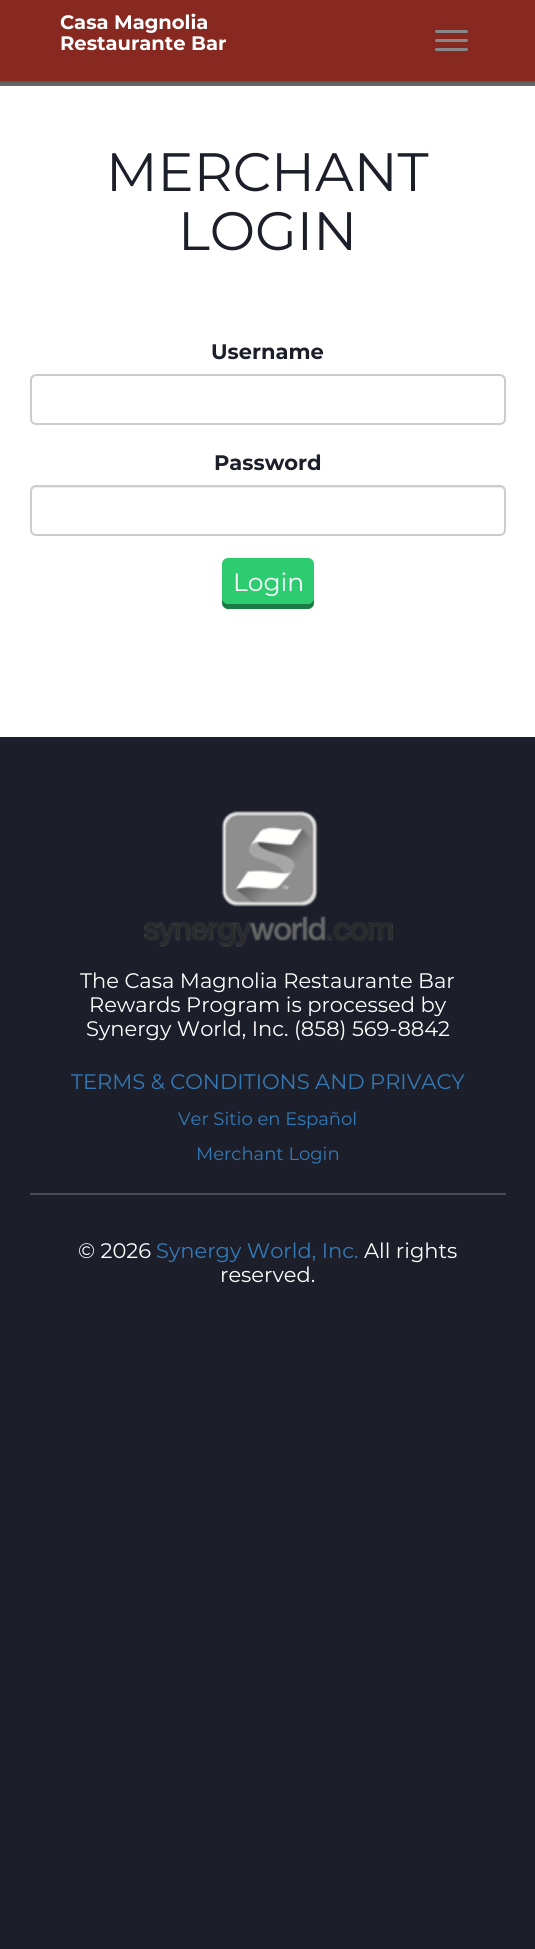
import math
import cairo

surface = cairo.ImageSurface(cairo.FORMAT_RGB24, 535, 1949)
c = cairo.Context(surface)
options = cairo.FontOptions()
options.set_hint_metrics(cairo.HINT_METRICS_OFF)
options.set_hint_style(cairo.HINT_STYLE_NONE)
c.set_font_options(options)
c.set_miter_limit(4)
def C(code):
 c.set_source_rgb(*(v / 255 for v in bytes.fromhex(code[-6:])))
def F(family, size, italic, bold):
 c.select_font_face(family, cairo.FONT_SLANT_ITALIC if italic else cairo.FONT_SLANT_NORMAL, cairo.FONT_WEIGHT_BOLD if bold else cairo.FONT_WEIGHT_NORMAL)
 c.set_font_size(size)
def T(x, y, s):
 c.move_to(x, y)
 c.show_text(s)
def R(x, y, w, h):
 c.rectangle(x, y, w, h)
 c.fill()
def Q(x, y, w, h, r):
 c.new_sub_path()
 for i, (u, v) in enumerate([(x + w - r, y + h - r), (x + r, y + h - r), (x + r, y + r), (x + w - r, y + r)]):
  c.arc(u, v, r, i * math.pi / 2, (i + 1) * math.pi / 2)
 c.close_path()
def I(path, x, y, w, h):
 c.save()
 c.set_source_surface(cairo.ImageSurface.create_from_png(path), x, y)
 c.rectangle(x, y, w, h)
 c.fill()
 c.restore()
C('1c1e2a')
c.paint()
C('e7e7e7')
R(0,81,535,2)
C('ffffff')
R(0,83,535,654)
c.set_source_rgba(0,0,0,0.6)
c.new_path()
c.move_to(0,81)
c.line_to(0,86)
c.line_to(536,86)
c.line_to(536,5)
c.line_to(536,81)
c.close_path()
c.fill()
C('872821')
R(0,0,535,81)
F('Montserrat',19.5,0,1)
C('ffffff')
T(60,29,'Casa Magnolia')
T(60,50,'Restaurante Bar')
C('888888')
Q(435,30,33,3,1.5)
c.fill()
Q(435,39,33,3,1.5)
c.fill()
Q(435,48,33,3,1.5)
c.fill()
F('Montserrat',54,0,0)
C('1c1e2a')
T(106,191,'MERCHANT')
T(178,250,'LOGIN')
F('Montserrat',21,0,1)
T(211,359,'Username')
C('ececec')
c.new_path()
c.move_to(36,376)
c.line_to(500,376)
c.curve_to(502,376,504,379,504,381)
c.line_to(504,380)
c.curve_to(504,377,502,375,499,375)
c.line_to(37,375)
c.curve_to(34,375,32,377,32,380)
c.line_to(32,381)
c.curve_to(32,379,34,376,36,376)
c.close_path()
c.fill()
Q(31,375,474,49,5)
C('cccccc')
c.stroke()
C('1c1e2a')
T(214,470,'Password')
C('ececec')
c.new_path()
c.move_to(36,488)
c.line_to(500,488)
c.curve_to(502,488,504,490,504,492)
c.line_to(504,491)
c.curve_to(504,488,502,486,499,486)
c.line_to(37,486)
c.curve_to(34,486,32,488,32,491)
c.line_to(32,492)
c.curve_to(32,490,34,488,36,488)
c.close_path()
c.fill()
Q(31,486,474,49,5)
C('cccccc')
c.stroke()
C('2ecc71')
Q(222,558,92,51,6)
c.fill()
c.set_source_rgba(0,0,0,0.4)
c.new_path()
c.move_to(222,598)
c.line_to(222,603)
c.curve_to(222,606,225,609,228,609)
c.line_to(308,609)
c.curve_to(311,609,314,606,314,603)
c.line_to(314,598)
c.curve_to(314,602,311,604,308,604)
c.line_to(228,604)
c.curve_to(225,604,222,602,222,598)
c.close_path()
c.fill()
F('Montserrat',25,0,0)
C('ffffff')
T(233,591,'Login')
C('484a54')
R(30,1193,476,2)
I('1.png',144,811,249,136)
F('Montserrat',21,0,0)
C('ffffff')
T(80,988,'The Casa Magnolia Restaurante Bar')
T(89,1012,'Rewards Program is processed by')
T(86,1036,'Synergy World, Inc. (858) 569-8842')
C('337ab7')
T(71,1089,'TERMS & CONDITIONS AND PRIVACY')
F('Montserrat',18,0,0)
T(178,1125,'Ver Sitio en Español')
T(196,1160,'Merchant Login')
F('Montserrat',21,0,0)
C('ffffff')
T(78,1258,'© 2026')
C('337ab7')
T(156,1258,'Synergy World, Inc.')
C('ffffff')
T(364,1258,'All rights')
T(220,1282,'reserved.')
surface.write_to_png('o.png')
